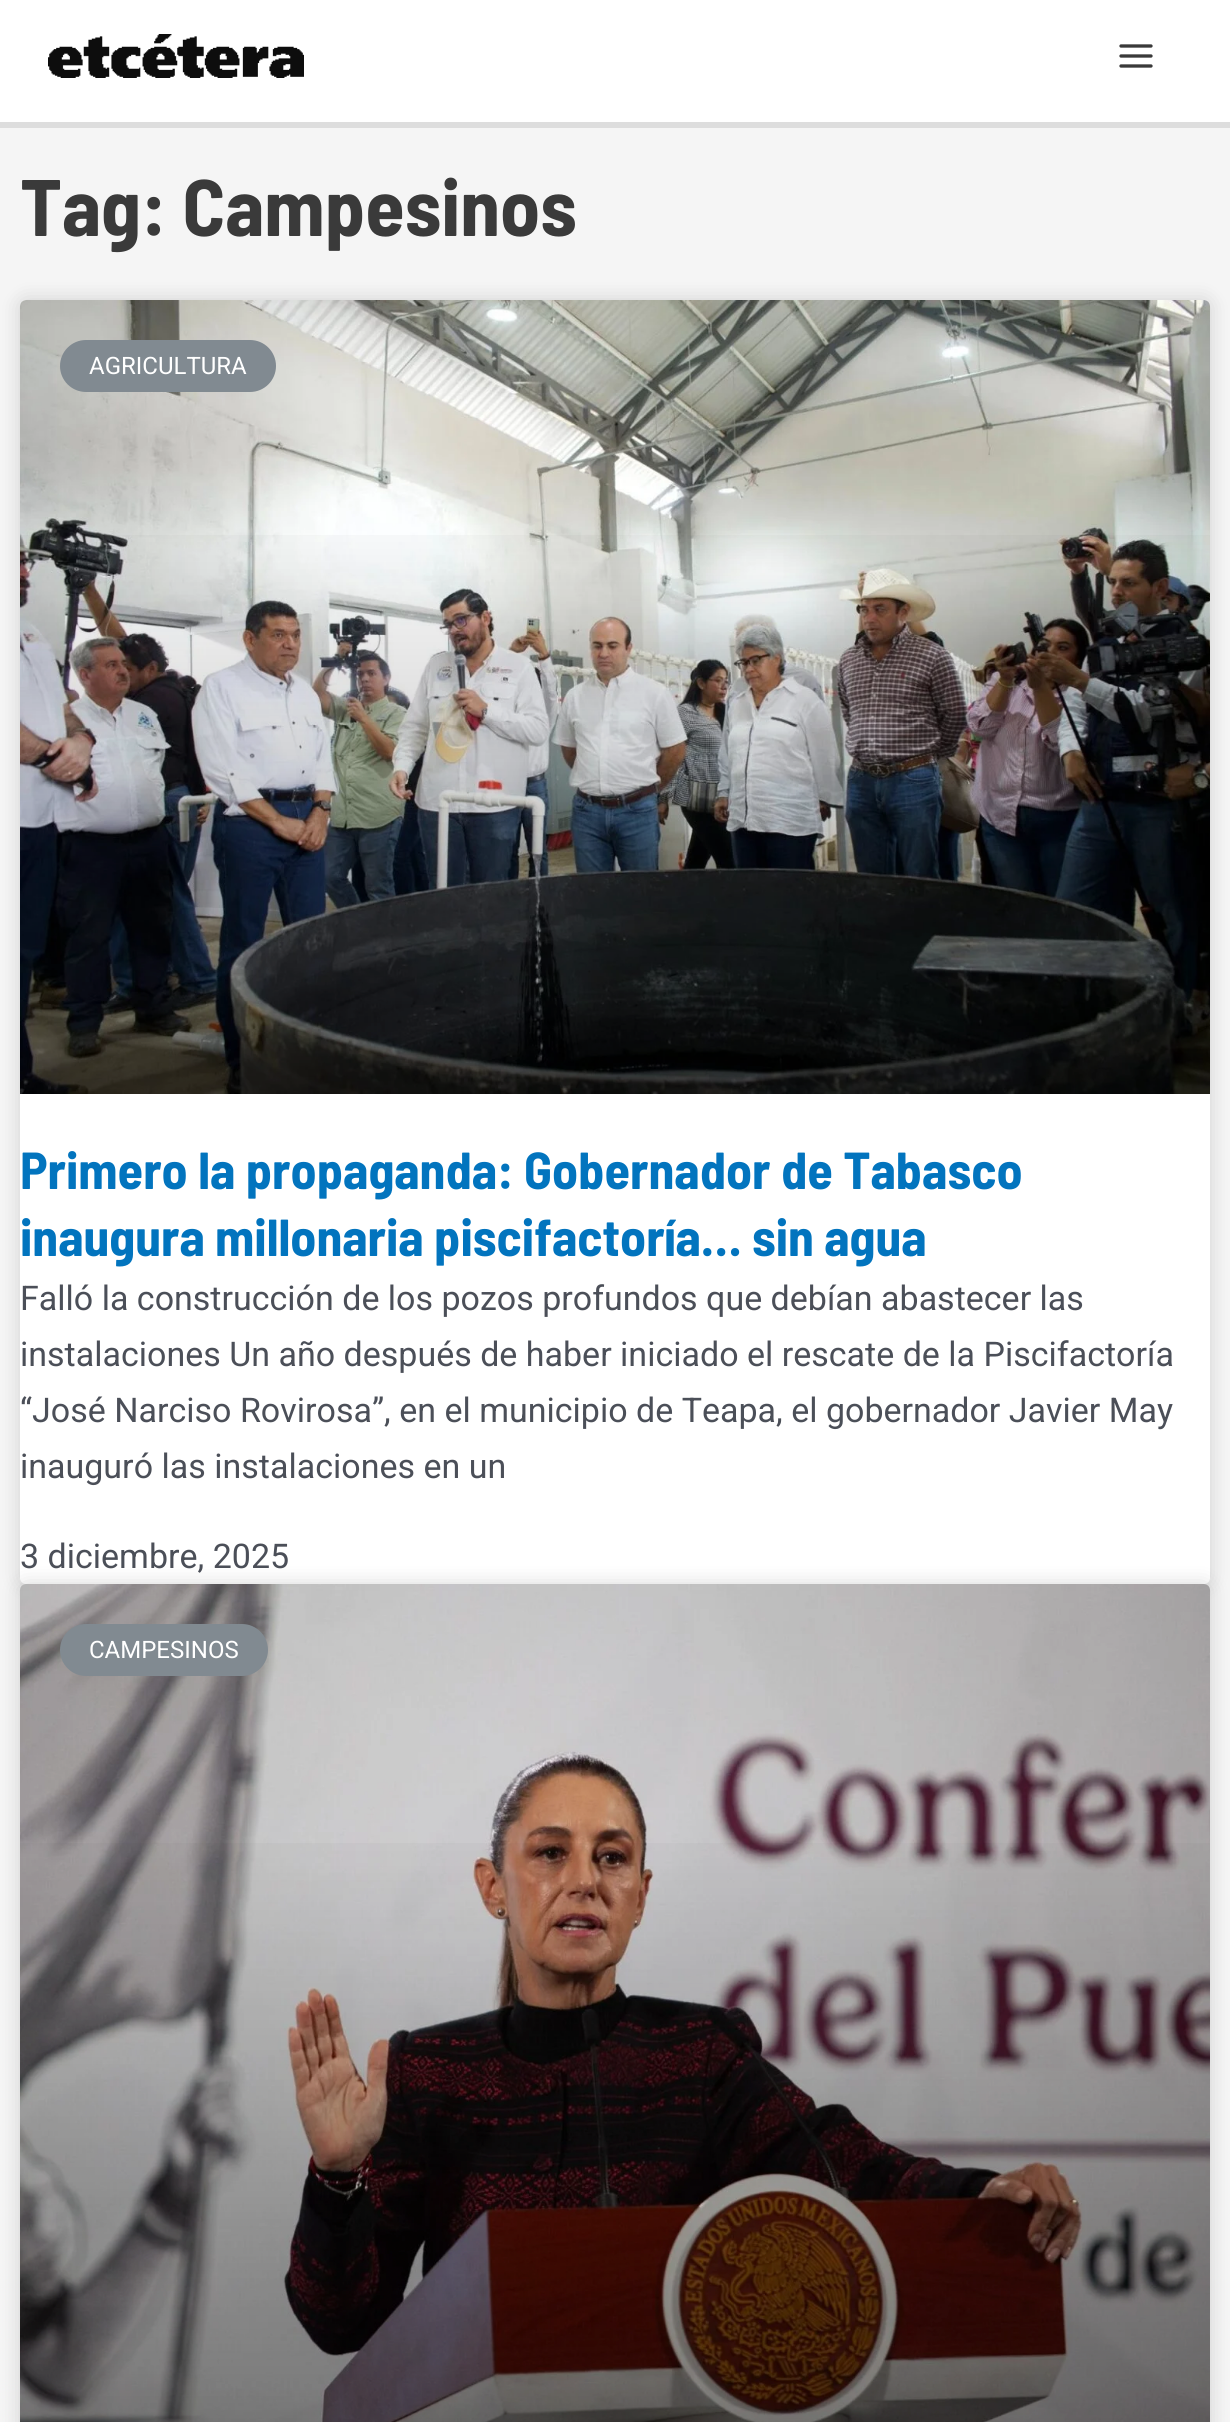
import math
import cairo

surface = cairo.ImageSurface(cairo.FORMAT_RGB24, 1230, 2422)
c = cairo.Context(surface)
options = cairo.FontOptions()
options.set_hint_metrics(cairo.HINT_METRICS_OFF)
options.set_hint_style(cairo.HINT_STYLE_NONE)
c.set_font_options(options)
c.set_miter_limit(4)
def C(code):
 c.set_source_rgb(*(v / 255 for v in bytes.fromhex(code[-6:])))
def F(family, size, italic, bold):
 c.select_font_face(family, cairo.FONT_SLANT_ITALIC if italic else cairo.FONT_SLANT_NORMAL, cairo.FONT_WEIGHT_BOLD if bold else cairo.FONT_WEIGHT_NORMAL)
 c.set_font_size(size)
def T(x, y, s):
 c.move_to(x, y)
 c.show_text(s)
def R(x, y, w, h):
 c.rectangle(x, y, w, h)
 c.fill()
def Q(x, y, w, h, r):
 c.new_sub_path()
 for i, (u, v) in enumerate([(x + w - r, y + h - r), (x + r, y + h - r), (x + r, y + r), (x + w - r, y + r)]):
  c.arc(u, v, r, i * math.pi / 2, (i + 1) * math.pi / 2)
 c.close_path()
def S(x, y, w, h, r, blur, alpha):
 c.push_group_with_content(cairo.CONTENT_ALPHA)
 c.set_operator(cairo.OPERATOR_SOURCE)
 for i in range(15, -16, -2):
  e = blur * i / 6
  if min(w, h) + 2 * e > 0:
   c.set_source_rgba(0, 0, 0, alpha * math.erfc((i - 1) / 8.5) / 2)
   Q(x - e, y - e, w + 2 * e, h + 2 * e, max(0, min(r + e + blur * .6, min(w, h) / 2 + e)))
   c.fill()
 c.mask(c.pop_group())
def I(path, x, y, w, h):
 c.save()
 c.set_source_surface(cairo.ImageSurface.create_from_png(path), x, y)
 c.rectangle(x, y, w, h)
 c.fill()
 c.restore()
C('f5f5f5')
c.paint()
C('ffffff')
R(0,0,1230,122)
C('dddddd')
R(0,122,1230,6)
I('1.png',48,34,256,44)
I('2.png',1119,44,34,24)
F('Barlow Semi Condensed',80,0,1)
C('3a3a3a')
T(20,236,'Tag: Campesinos')
C('000000')
S(20,300,1190,1284,6,10,.15)
C('ffffff')
Q(20,300,1190,1284,6)
c.fill()
I('3.png',20,300,1190,794)
gradient = cairo.LinearGradient(615,1094,615,300)
gradient.add_color_stop_rgba(0,0,0,0,.35)
gradient.add_color_stop_rgba(.75,0,0,0,0)
c.set_source(gradient)
R(20,535,1190,559)
C('818a91')
Q(60,340,216,52,26)
c.fill()
F('Roboto',24,0,0)
C('ffffff')
T(89,374,'AGRICULTURA')
F('Barlow Semi Condensed',52,0,1)
C('0274be')
T(20,1189,'Primero la propaganda: Gobernador de Tabasco')
T(20,1256,'inaugura millonaria piscifactoría… sin agua')
F('Roboto',34,0,0)
C('4b4f58')
T(20,1310,'Falló la construcción de los pozos profundos que debían abastecer las')
T(20,1366,'instalaciones Un año después de haber iniciado el rescate de la Piscifactoría')
T(20,1422,'“José Narciso Rovirosa”, en el municipio de Teapa, el gobernador Javier May')
T(20,1478,'inauguró las instalaciones en un')
T(20,1568,'3 diciembre, 2025')
C('000000')
S(20,1584,1190,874,6,10,.15)
I('4.png',20,1584,1190,838)
gradient = cairo.LinearGradient(615,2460,615,1584)
gradient.add_color_stop_rgba(0,0,0,0,.35)
gradient.add_color_stop_rgba(.75,0,0,0,0)
c.set_source(gradient)
R(20,1843,1190,579)
C('818a91')
Q(60,1624,208,52,26)
c.fill()
F('Roboto',24,0,0)
C('ffffff')
T(89,1658,'CAMPESINOS')
surface.write_to_png('o.png')
